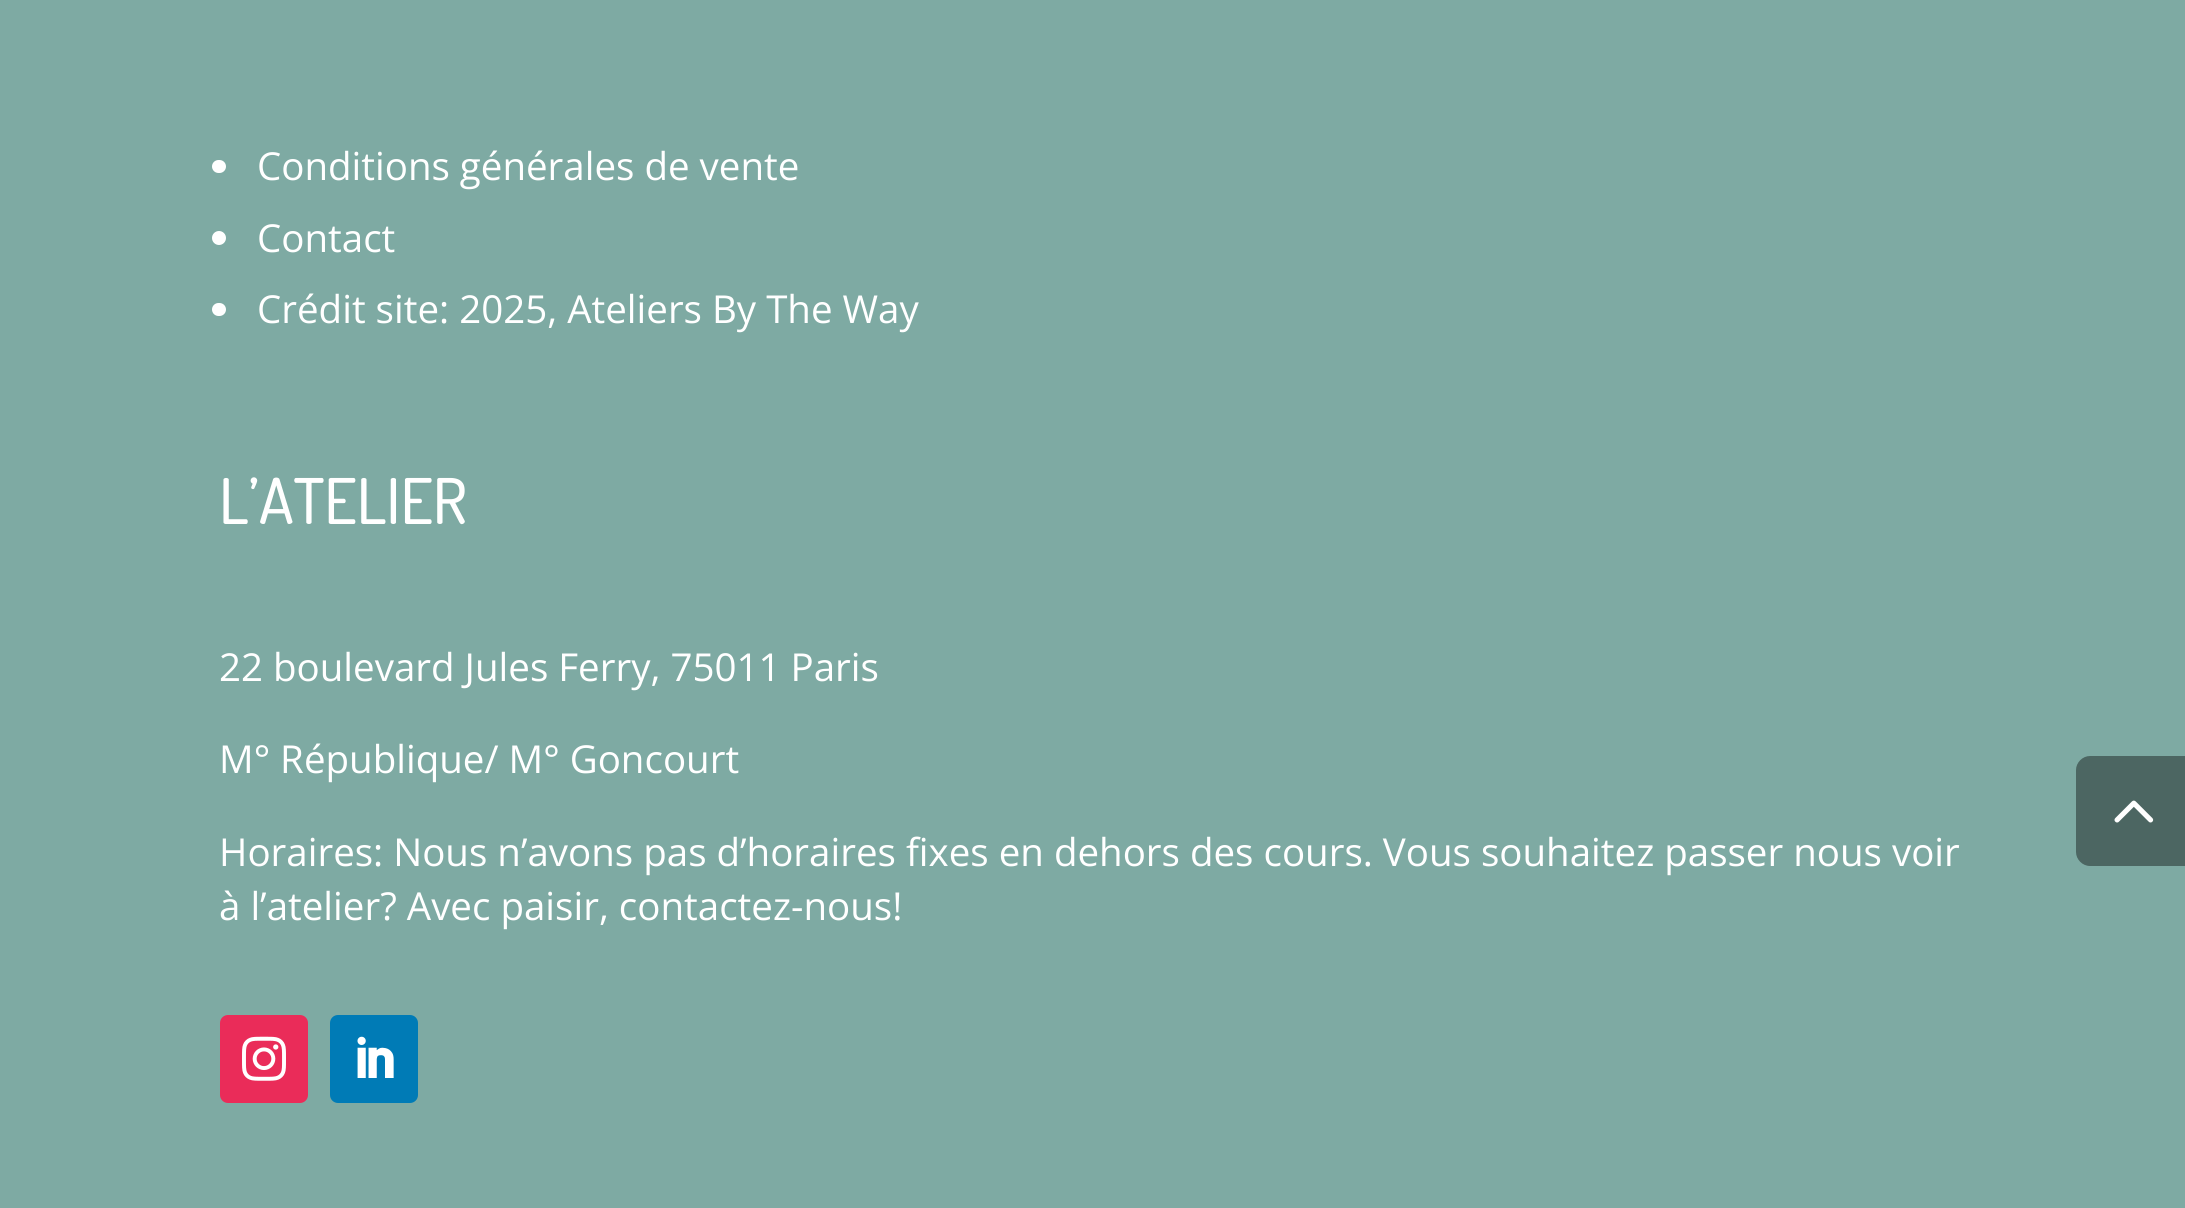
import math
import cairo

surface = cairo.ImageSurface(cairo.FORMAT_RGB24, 2185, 1208)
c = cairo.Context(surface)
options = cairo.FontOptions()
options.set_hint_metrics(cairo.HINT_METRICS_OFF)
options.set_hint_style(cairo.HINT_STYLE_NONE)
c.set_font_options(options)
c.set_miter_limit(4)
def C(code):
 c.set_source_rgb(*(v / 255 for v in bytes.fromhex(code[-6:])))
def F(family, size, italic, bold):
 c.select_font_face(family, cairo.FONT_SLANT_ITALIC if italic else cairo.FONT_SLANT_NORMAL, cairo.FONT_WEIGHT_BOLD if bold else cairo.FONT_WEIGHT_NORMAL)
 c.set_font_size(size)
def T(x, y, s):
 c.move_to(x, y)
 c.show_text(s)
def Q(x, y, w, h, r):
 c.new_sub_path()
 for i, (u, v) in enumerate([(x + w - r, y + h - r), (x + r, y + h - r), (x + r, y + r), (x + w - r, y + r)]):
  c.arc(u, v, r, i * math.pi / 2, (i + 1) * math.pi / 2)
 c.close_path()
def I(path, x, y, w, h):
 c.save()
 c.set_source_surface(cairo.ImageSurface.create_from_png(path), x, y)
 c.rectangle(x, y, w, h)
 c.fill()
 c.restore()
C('7eaaa3')
c.paint()
C('ffffff')
Q(212,160,14,13,6.5)
c.fill()
F('Open Sans',38.5,0,0)
T(257,180,'Conditions générales de vente')
c.new_path()
c.arc(219,238,7,0,2 * math.pi)
c.fill()
T(257,252,'Contact')
Q(212,303,14,13,6.5)
c.fill()
T(257,323,'Crédit site: 2025, Ateliers By The Way')
F('Dosis Medium',63,0,0)
T(219,524,'L’ATELIER')
F('Open Sans',38.5,0,0)
T(219,681,'22 boulevard Jules Ferry, 75011 Paris')
T(219,773,'M° République/ M° Goncourt')
T(219,866,'Horaires: Nous n’avons pas d’horaires fixes en dehors des cours. Vous souhaitez passer nous voir')
T(219,920,'à l’atelier? Avec paisir, contactez-nous!')
C('ea2c59')
Q(220,1015,88,88,8)
c.fill()
I('1.png',242,1036,44,45)
C('007bb6')
Q(330,1015,88,88,8)
c.fill()
I('2.png',357,1036,37,42)
C('4c6662')
c.new_path()
c.move_to(2090,756)
c.line_to(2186,756)
c.line_to(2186,866)
c.line_to(2090,866)
c.curve_to(2082.5,866,2076,859.5,2076,852)
c.line_to(2076,770)
c.curve_to(2076,762.5,2082.5,756,2090,756)
c.close_path()
c.fill()
I('3.png',2114,800,40,23)
surface.write_to_png('o.png')
